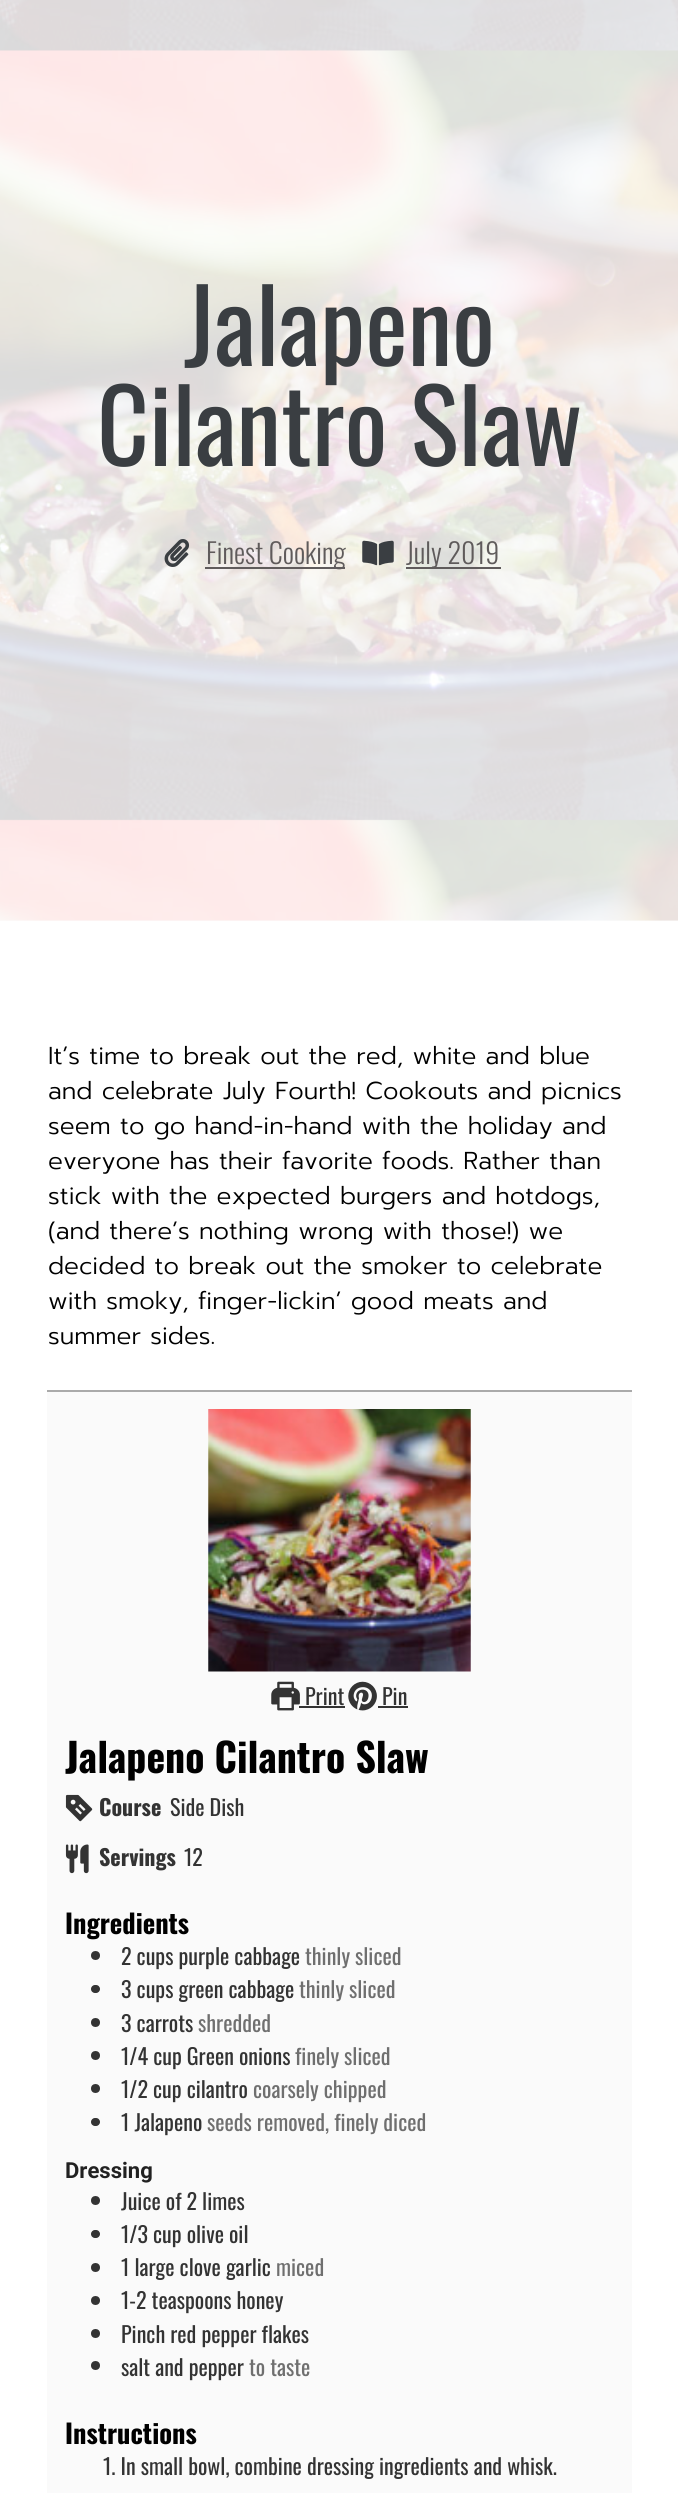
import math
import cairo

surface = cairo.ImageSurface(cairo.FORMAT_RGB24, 678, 2493)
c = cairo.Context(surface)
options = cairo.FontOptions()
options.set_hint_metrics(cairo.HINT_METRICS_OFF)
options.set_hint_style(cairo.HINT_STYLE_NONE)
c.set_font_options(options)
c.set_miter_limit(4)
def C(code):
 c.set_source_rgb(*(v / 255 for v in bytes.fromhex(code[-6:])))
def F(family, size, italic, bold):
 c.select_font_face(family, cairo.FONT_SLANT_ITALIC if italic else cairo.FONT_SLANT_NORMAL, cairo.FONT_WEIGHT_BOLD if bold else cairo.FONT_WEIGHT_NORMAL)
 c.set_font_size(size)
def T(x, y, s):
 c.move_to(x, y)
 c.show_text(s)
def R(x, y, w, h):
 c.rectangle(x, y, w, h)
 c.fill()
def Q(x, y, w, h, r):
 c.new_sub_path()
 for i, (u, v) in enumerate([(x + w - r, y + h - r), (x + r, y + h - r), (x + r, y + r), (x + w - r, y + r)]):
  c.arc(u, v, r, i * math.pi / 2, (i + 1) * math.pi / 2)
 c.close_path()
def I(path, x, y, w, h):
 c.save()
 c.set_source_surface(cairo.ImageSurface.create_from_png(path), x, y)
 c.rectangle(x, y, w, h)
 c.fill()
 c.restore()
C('ffffff')
c.paint()
C('fcfcfc')
R(0,920,678,1)
I('1.png',0,0,678,921)
F('Oswald',101,0,0)
C('3a3e42')
T(184,366,'Jalapeno')
T(97,466,'Cilantro Slaw')
I('2.png',164,539,26,28)
C('5f5b5b')
R(205,567,140,2)
F('Oswald Light',28,0,0)
T(206,564,'Finest Cooking')
I('3.png',362,540,32,26)
R(406,567,95,2)
T(406,564,'July 2019')
F('Prompt Light',24.5,0,0)
C('000000')
T(48,1064,'It’s time to break out the red, white and blue')
T(48,1099,'and celebrate July Fourth! Cookouts and picnics')
T(48,1134,'seem to go hand-in-hand with the holiday and')
T(48,1169,'everyone has their favorite foods. Rather than')
T(48,1204,'stick with the expected burgers and hotdogs,')
T(48,1239,'(and there’s nothing wrong with those!) we')
T(48,1274,'decided to break out the smoker to celebrate')
T(48,1309,'with smoky, finger-lickin’ good meats and')
T(48,1344,'summer sides.')
C('fafafa')
R(47,1392,585,1101)
C('aaaaaa')
R(47,1390,585,2)
I('4.png',208,1409,263,263)
C('333333')
R(299,1706,46,2)
I('5.png',271,1681,29,30)
F('Oswald',22.05,0,0)
T(305,1705,'Print')
I('6.png',348,1681,29,30)
T(382,1705,'Pin')
R(378,1706,30,2)
F('Oswald',39.75,0,1)
C('000000')
T(65,1773,'Jalapeno Cilantro Slaw')
I('7.png',65,1794,28,28)
F('Oswald',22.05,0,1)
C('333333')
T(99,1816,'Course')
F('Oswald',22.05,0,0)
T(170,1816,'Side Dish')
I('8.png',65,1844,24,30)
F('Oswald',22.05,0,1)
T(99,1866,'Servings')
F('Oswald',22.05,0,0)
T(184,1866,'12')
F('Oswald',26.5,0,1)
C('000000')
T(65,1934,'Ingredients')
C('333333')
c.new_path()
c.arc(95.5,1955.5,4.5,0,2 * math.pi)
c.fill()
F('Oswald',22.05,0,0)
T(121,1965,'2 cups purple cabbage')
C('6f6f6f')
T(305,1965,'thinly sliced')
C('333333')
Q(91,1985,9,8,4)
c.fill()
T(121,1998,'3 cups green cabbage')
C('6f6f6f')
T(299,1998,'thinly sliced')
C('333333')
c.new_path()
c.arc(95.5,2022.5,4.5,0,2 * math.pi)
c.fill()
T(121,2032,'3 carrots')
C('6f6f6f')
T(198,2032,'shredded')
C('333333')
c.new_path()
c.arc(95.5,2055.5,4.5,0,2 * math.pi)
c.fill()
T(121,2065,'1/4 cup Green onions')
C('6f6f6f')
T(295,2065,'finely sliced')
C('333333')
c.new_path()
c.arc(95.5,2088.5,4.5,0,2 * math.pi)
c.fill()
T(121,2098,'1/2 cup cilantro')
C('6f6f6f')
T(253,2098,'coarsely chipped')
C('333333')
Q(91,2118,9,8,4)
c.fill()
T(121,2131,'1 Jalapeno')
C('6f6f6f')
T(207,2131,'seeds removed, finely diced')
F('Roboto',22.05,0,1)
C('212121')
T(65,2178,'Dressing')
C('333333')
c.new_path()
c.arc(95.5,2200.5,4.5,0,2 * math.pi)
c.fill()
F('Oswald',22.05,0,0)
T(121,2210,'Juice of 2 limes')
Q(91,2230,9,8,4)
c.fill()
T(121,2243,'1/3 cup olive oil')
c.new_path()
c.arc(95.5,2267.5,4.5,0,2 * math.pi)
c.fill()
T(121,2276,'1 large clove garlic')
C('6f6f6f')
T(276,2276,'miced')
C('333333')
c.new_path()
c.arc(95.5,2300.5,4.5,0,2 * math.pi)
c.fill()
T(121,2309,'1-2 teaspoons honey')
c.new_path()
c.arc(95.5,2333.5,4.5,0,2 * math.pi)
c.fill()
T(121,2343,'Pinch red pepper flakes')
c.new_path()
c.arc(95.5,2365.5,4.5,0,2 * math.pi)
c.fill()
T(121,2376,'salt and pepper')
C('6f6f6f')
T(249,2376,'to taste')
F('Oswald',26.5,0,1)
C('000000')
T(65,2444,'Instructions')
F('Oswald',22.05,0,0)
C('333333')
T(103,2475,'1. In small bowl, combine dressing ingredients and whisk.')
surface.write_to_png('o.png')
